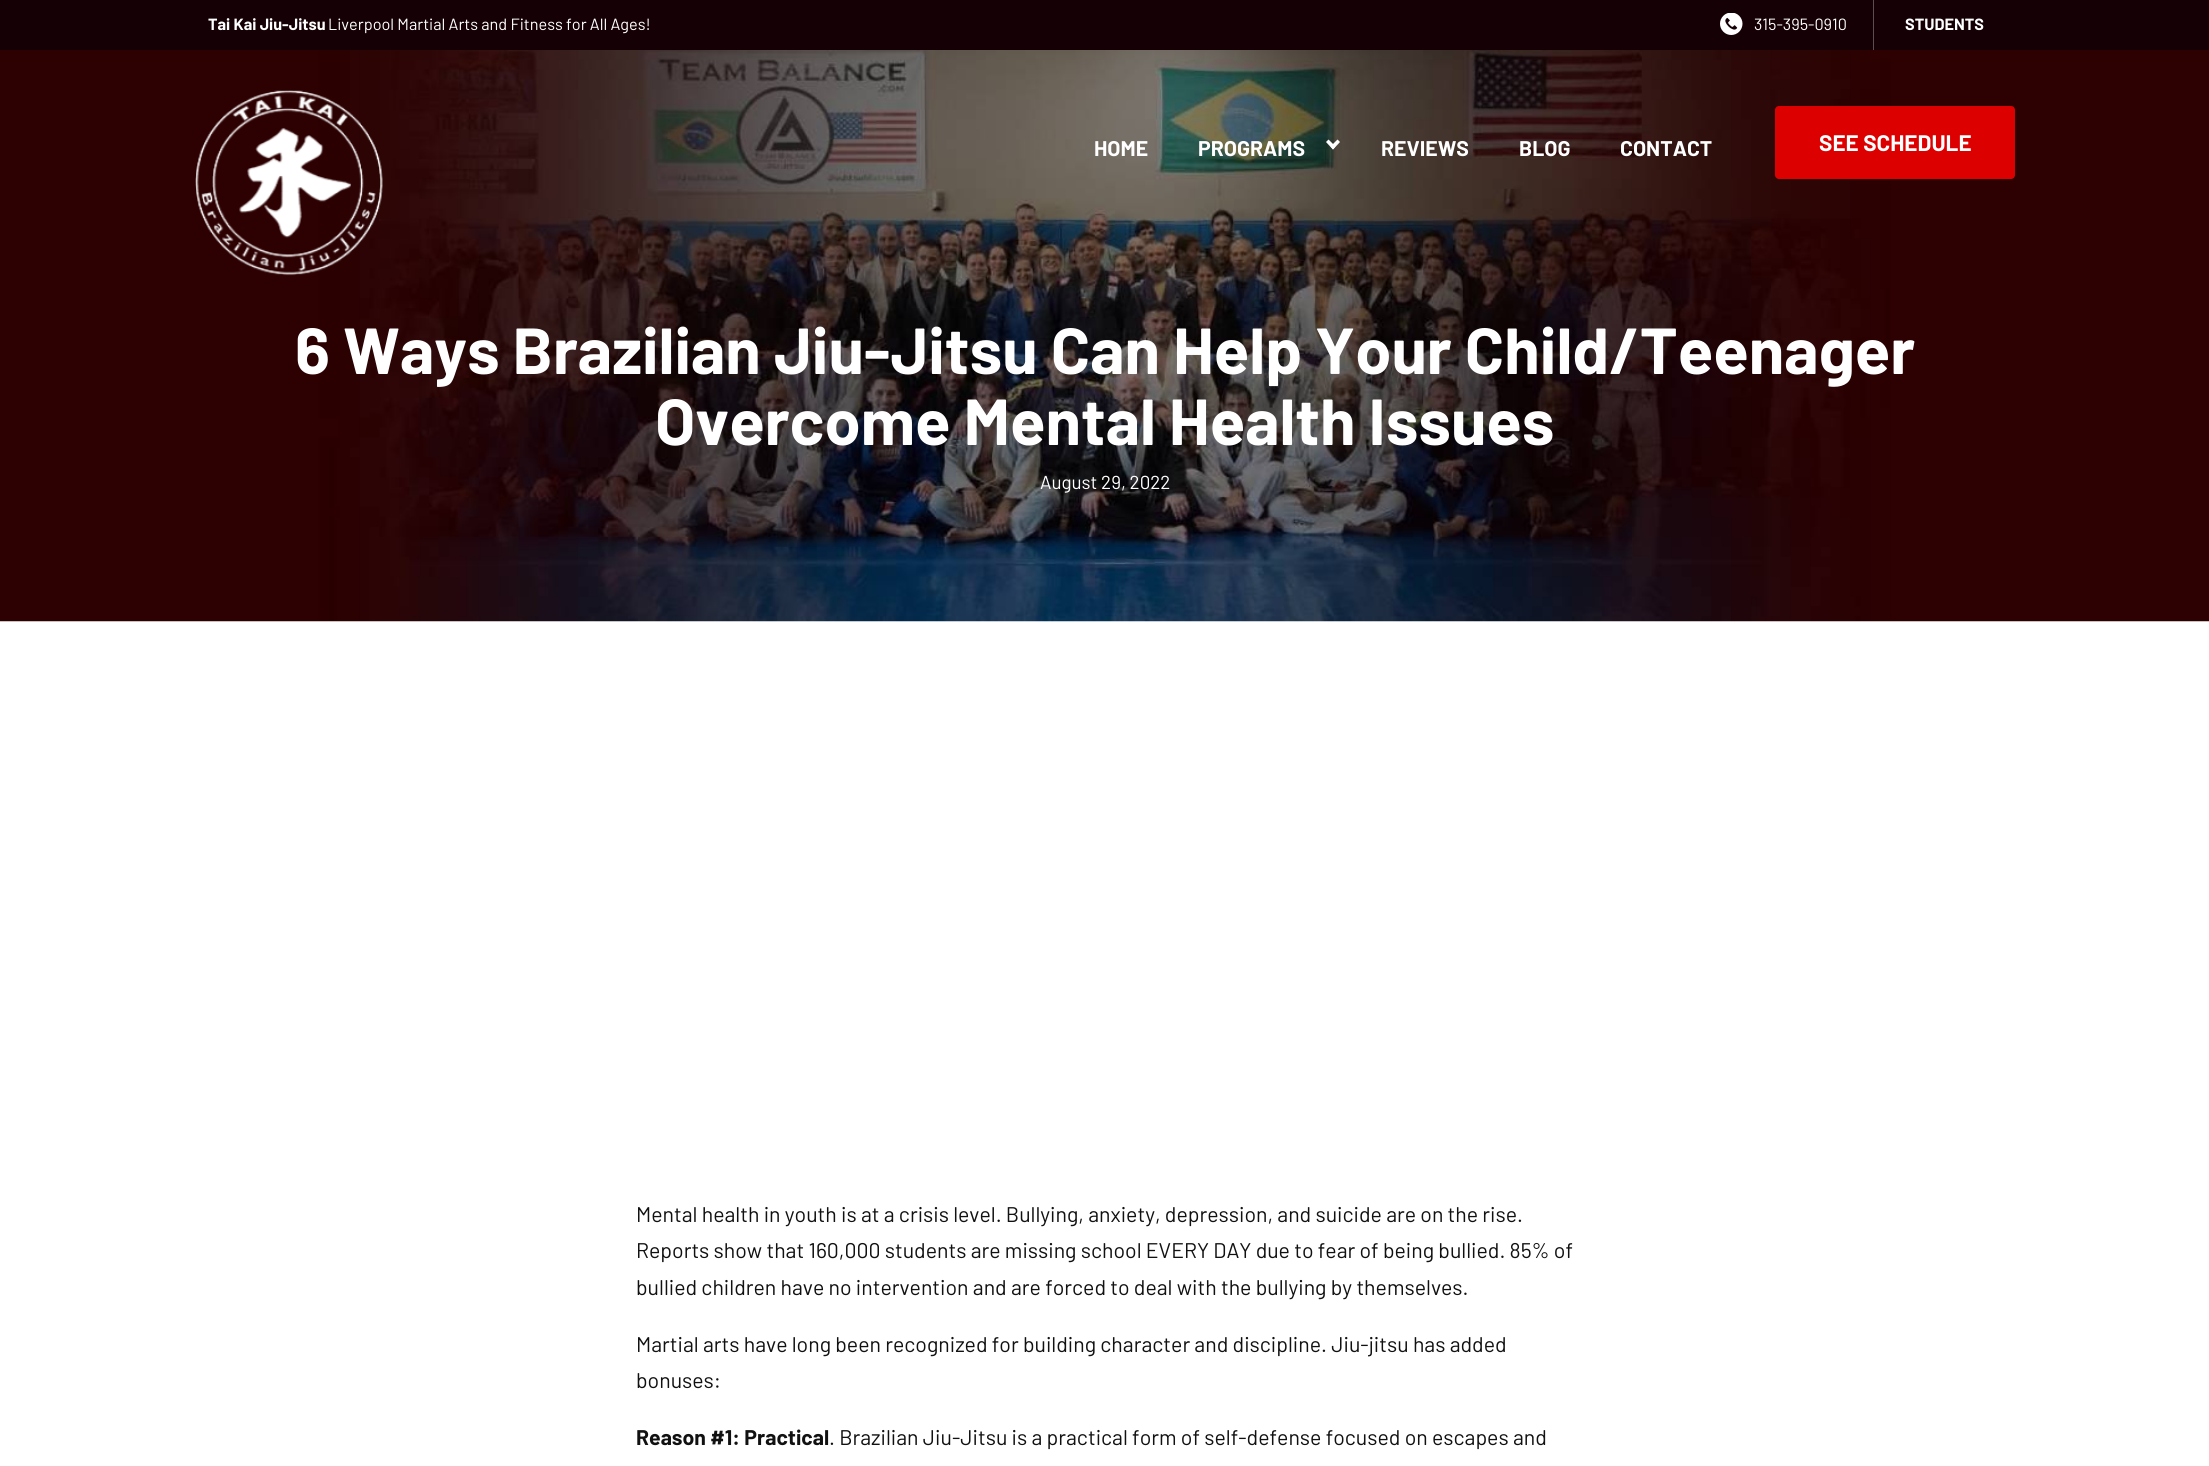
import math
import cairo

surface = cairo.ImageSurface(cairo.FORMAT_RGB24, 2209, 1466)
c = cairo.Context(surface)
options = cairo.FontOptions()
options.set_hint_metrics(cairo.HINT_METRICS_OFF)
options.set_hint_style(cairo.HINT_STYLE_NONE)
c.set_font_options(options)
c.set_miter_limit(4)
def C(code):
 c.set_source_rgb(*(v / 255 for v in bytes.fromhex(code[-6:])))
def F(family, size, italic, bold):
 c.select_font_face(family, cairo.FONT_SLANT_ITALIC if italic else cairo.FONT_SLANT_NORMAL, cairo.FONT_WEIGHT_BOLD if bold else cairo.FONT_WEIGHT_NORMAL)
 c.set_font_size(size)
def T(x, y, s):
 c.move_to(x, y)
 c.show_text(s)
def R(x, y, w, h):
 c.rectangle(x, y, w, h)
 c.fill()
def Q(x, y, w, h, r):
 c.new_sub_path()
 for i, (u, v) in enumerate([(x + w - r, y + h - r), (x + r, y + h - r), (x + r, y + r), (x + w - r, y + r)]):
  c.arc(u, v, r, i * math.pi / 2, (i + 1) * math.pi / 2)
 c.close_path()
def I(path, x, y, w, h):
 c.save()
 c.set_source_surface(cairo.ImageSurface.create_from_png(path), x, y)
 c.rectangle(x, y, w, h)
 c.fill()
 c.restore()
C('ffffff')
c.paint()
C('140005')
R(0,0,2209,50)
F('Barlow',16.25,0,1)
C('ffffff')
T(208,30,'Tai Kai Jiu-Jitsu')
F('Barlow',16.25,0,0)
T(328,30,'Liverpool Martial Arts and Fitness for All Ages!')
I('1.png',1720,13,23,22)
T(1754,30,'315-395-0910')
C('5b4d50')
R(1873,0,1,50)
F('Barlow',16.25,0,1)
C('ffffff')
T(1905,30,'STUDENTS')
I('3.png',0,50,2209,572)
I('2.png',195,90,188,186)
F('Barlow',21.25,0,1)
T(1094,156,'HOME')
T(1198,156,'PROGRAMS')
c.new_path()
c.move_to(1337.5,139.5)
c.line_to(1340,142)
c.line_to(1333,149.5)
c.line_to(1330.5,146.5)
c.close_path()
c.fill()
c.new_path()
c.move_to(1328.5,139.5)
c.line_to(1335.5,146.5)
c.line_to(1333,149.5)
c.line_to(1326,142)
c.close_path()
c.fill()
T(1381,156,'REVIEWS')
T(1519,156,'BLOG')
T(1620,156,'CONTACT')
C('dd0000')
Q(1775,106,240,73,4)
c.fill()
F('Barlow',22.5,0,1)
C('ffffff')
T(1819,151,'SEE SCHEDULE')
F('Barlow',65,0,1)
T(295,374,'6 Ways Brazilian Jiu-Jitsu Can Help Your Child/Teenager')
T(655,445,'Overcome Mental Health Issues')
F('Barlow',18.75,0,0)
T(1040,489,'August 29, 2022')
F('Barlow',21.25,0,0)
C('111111')
T(636,1222,'Mental health in youth is at a crisis level. Bullying, anxiety, depression, and suicide are on the rise.')
T(636,1258,'Reports show that 160,000 students are missing school EVERY DAY due to fear of being bullied. 85% of')
T(636,1295,'bullied children have no intervention and are forced to deal with the bullying by themselves.')
T(636,1352,'Martial arts have long been recognized for building character and discipline. Jiu-jitsu has added')
T(636,1388,'bonuses:')
F('Barlow',21.25,0,1)
T(636,1445,'Reason #1: Practical')
F('Barlow',21.25,0,0)
T(829,1445,'. Brazilian Jiu-Jitsu is a practical form of self-defense focused on escapes and')
surface.write_to_png('o.png')
